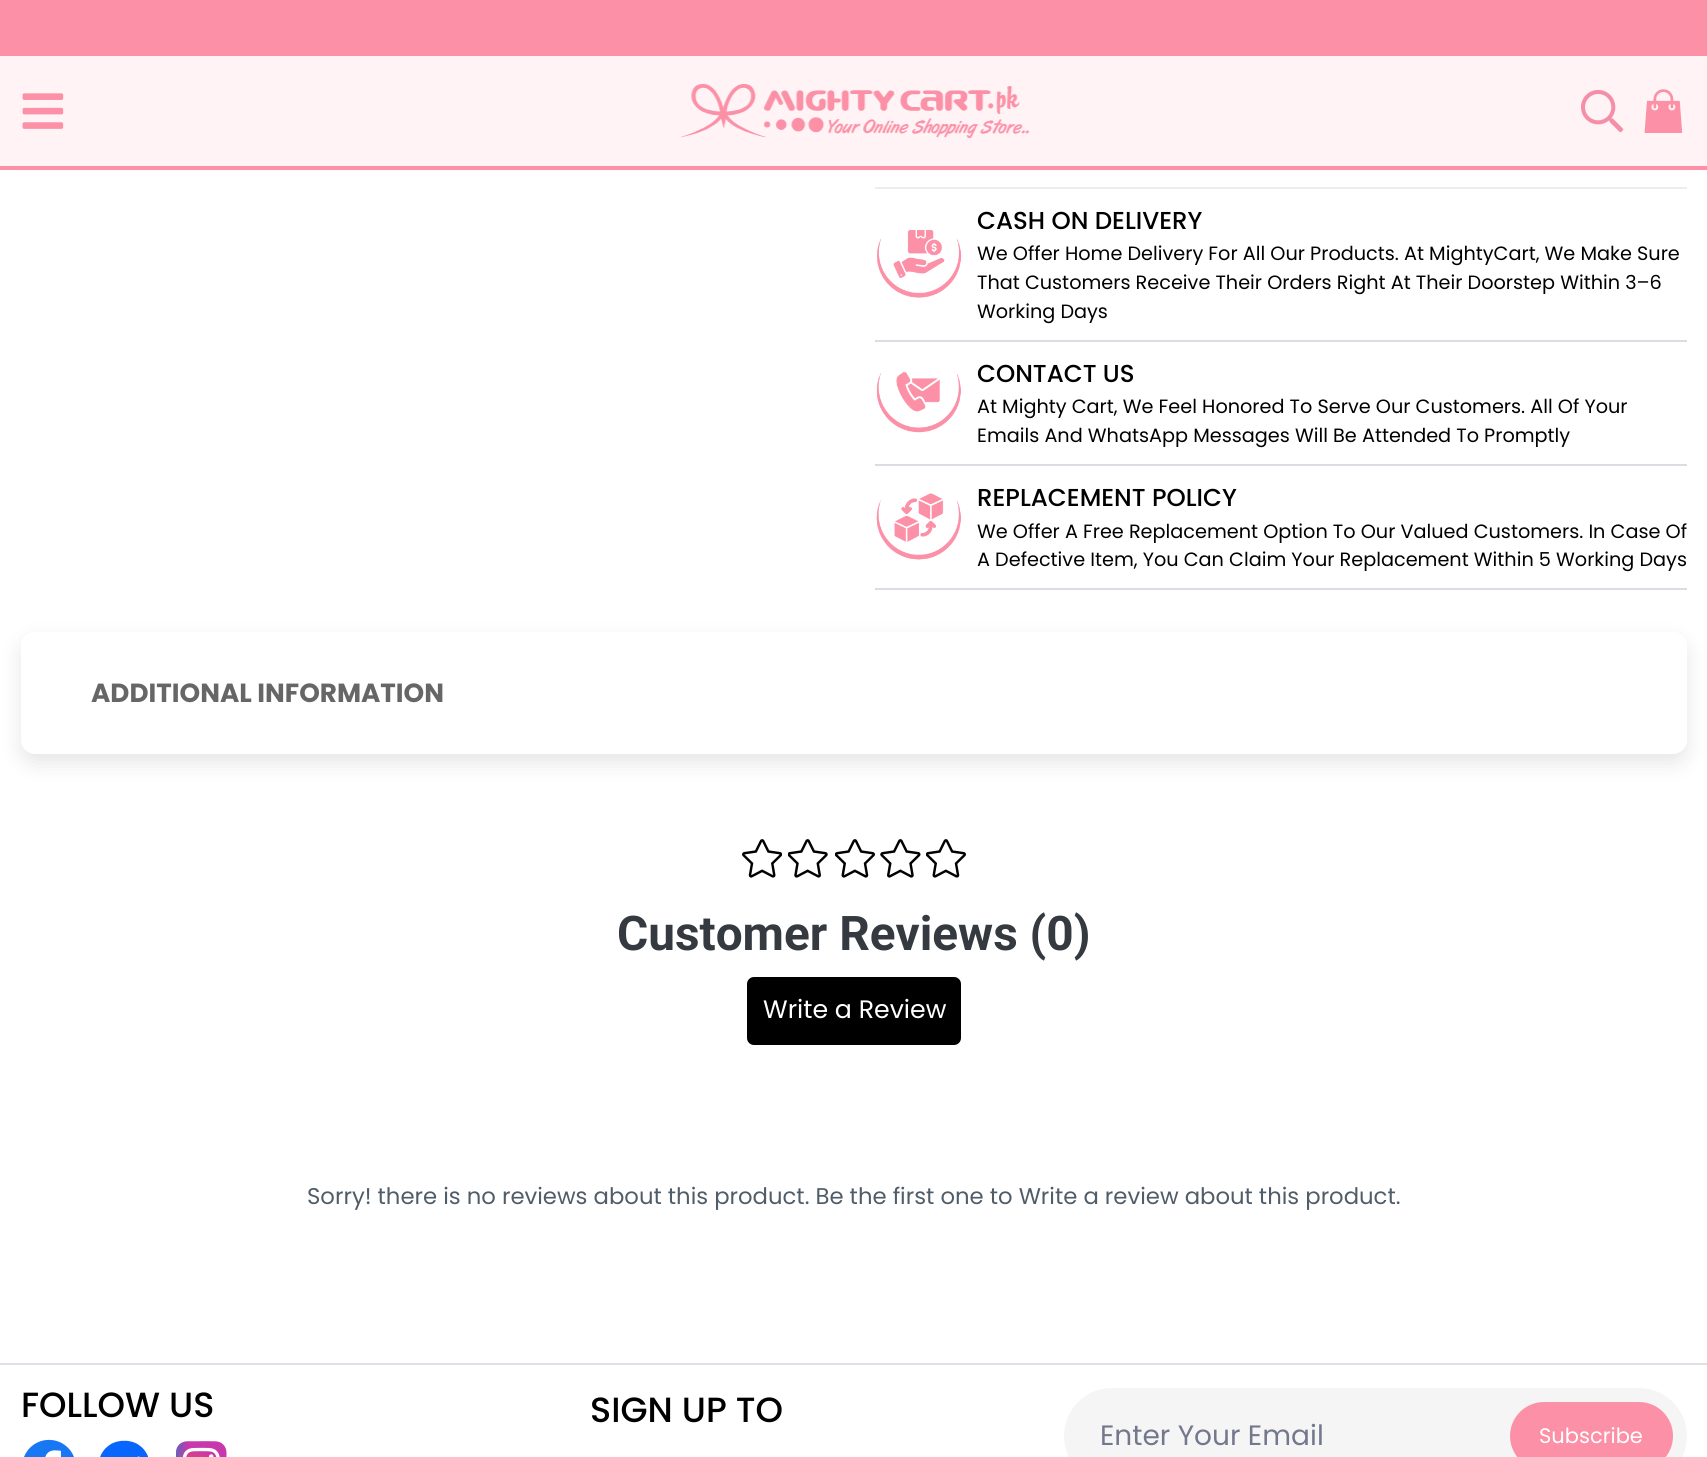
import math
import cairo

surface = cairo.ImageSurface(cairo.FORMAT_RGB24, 1707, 1457)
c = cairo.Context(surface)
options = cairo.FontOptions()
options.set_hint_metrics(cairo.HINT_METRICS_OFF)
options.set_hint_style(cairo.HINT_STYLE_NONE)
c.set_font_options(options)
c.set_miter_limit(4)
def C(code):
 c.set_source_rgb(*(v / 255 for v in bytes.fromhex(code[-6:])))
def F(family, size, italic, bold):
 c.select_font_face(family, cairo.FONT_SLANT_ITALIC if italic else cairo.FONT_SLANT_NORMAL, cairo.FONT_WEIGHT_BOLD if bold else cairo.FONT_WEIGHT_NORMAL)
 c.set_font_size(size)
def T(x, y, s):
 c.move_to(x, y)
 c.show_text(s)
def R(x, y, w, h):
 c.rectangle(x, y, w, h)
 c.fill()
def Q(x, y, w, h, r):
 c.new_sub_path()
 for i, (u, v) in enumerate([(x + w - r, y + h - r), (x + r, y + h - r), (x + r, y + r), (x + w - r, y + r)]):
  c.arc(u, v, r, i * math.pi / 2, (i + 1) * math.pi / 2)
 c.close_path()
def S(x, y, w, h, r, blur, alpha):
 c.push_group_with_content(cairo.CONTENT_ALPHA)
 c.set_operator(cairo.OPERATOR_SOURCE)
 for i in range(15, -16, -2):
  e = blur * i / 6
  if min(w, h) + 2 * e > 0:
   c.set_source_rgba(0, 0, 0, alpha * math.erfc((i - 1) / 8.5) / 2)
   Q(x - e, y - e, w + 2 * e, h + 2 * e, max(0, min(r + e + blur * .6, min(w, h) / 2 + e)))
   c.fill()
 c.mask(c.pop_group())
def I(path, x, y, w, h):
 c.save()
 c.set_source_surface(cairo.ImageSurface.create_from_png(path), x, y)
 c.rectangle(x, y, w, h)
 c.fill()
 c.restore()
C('ffffff')
c.paint()
C('fc90a7')
S(16,26,1676,139,0,7,.13)
C('fc90a7')
R(0,0,1707,56)
C('fff3f6')
R(0,56,1707,110)
C('fc90a7')
R(0,166,1707,4)
I('1.png',22,93,42,36)
I('2.png',680,84,350,54)
I('3.png',1581,90,43,43)
I('4.png',1644,89,39,44)
C('ededed')
R(875,187,812,2)
C('dadee3')
R(875,340,812,2)
I('5.png',876,230,86,68)
F('Poppins Medium',24.5,0,0)
C('000000')
T(977,229,'CASH ON DELIVERY')
F('Poppins',19.25,0,0)
T(977,260,'We Offer Home Delivery For All Our Products. At MightyCart, We Make Sure')
T(977,289,'That Customers Receive Their Orders Right At Their Doorstep Within 3–6')
T(977,318,'Working Days')
C('dadee3')
R(875,464,812,2)
I('6.png',876,372,85,61)
F('Poppins Medium',24.5,0,0)
C('000000')
T(977,382,'CONTACT US')
F('Poppins',19.25,0,0)
T(977,413,'At Mighty Cart, We Feel Honored To Serve Our Customers. All Of Your')
T(977,442,'Emails And WhatsApp Messages Will Be Attended To Promptly')
C('dadee3')
R(875,588,812,2)
I('7.png',876,493,85,67)
F('Poppins Medium',24.5,0,0)
C('000000')
T(977,506,'REPLACEMENT POLICY')
F('Poppins',19.25,0,0)
T(977,538,'We Offer A Free Replacement Option To Our Valued Customers. In Case Of')
T(977,566,'A Defective Item, You Can Claim Your Replacement Within 5 Working Days')
c.save()
c.set_fill_rule(cairo.FILL_RULE_EVEN_ODD)
c.new_path()
c.move_to(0,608)
c.line_to(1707,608)
c.line_to(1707,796)
c.line_to(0,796)
c.close_path()
c.move_to(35,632)
c.line_to(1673,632)
c.curve_to(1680.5,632,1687,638.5,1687,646)
c.line_to(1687,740)
c.curve_to(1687,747.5,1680.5,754,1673,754)
c.line_to(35,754)
c.curve_to(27.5,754,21,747.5,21,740)
c.line_to(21,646)
c.curve_to(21,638.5,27.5,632,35,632)
c.close_path()
c.clip()
C('000000')
S(21,641,1666,122,14,10.5,.1)
c.restore()
F('Poppins',26.25,0,1)
C('666666')
T(91,702,'ADDITIONAL INFORMATION')
I('8.png',742,839,40,39)
I('9.png',788,839,40,39)
I('10.png',835,839,40,39)
I('11.png',880,839,41,39)
I('10.png',926,839,40,39)
F('Roboto',47.75,0,1)
C('343a40')
T(617,950,'Customer Reviews (0)')
C('000000')
Q(747,977,214,68,7)
c.fill()
F('Poppins',25.25,0,0)
C('ffffff')
T(763,1018,'Write a Review')
F('Poppins',22.75,0,0)
C('505d69')
T(307,1204,'Sorry! there is no reviews about this product. Be the first one to Write a review about this product.')
C('dee2e6')
R(0,1363,1707,2)
F('Poppins Medium',35,0,0)
C('000000')
T(21,1417,'FOLLOW US')
I('12.png',24,1439,50,18)
I('13.png',100,1440,49,17)
I('14.png',175,1441,52,16)
T(590,1422,'SIGN UP TO')
C('f5f5f5')
Q(1064,1388,623,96,48)
c.fill()
F('Poppins',28,0,0)
C('74788d')
T(1100,1445,'Enter Your Email')
C('fc90a7')
Q(1510,1402,163,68,34)
c.fill()
F('Poppins',21,0,0)
C('ffffff')
T(1539,1443,'Subscribe')
surface.write_to_png('o.png')
